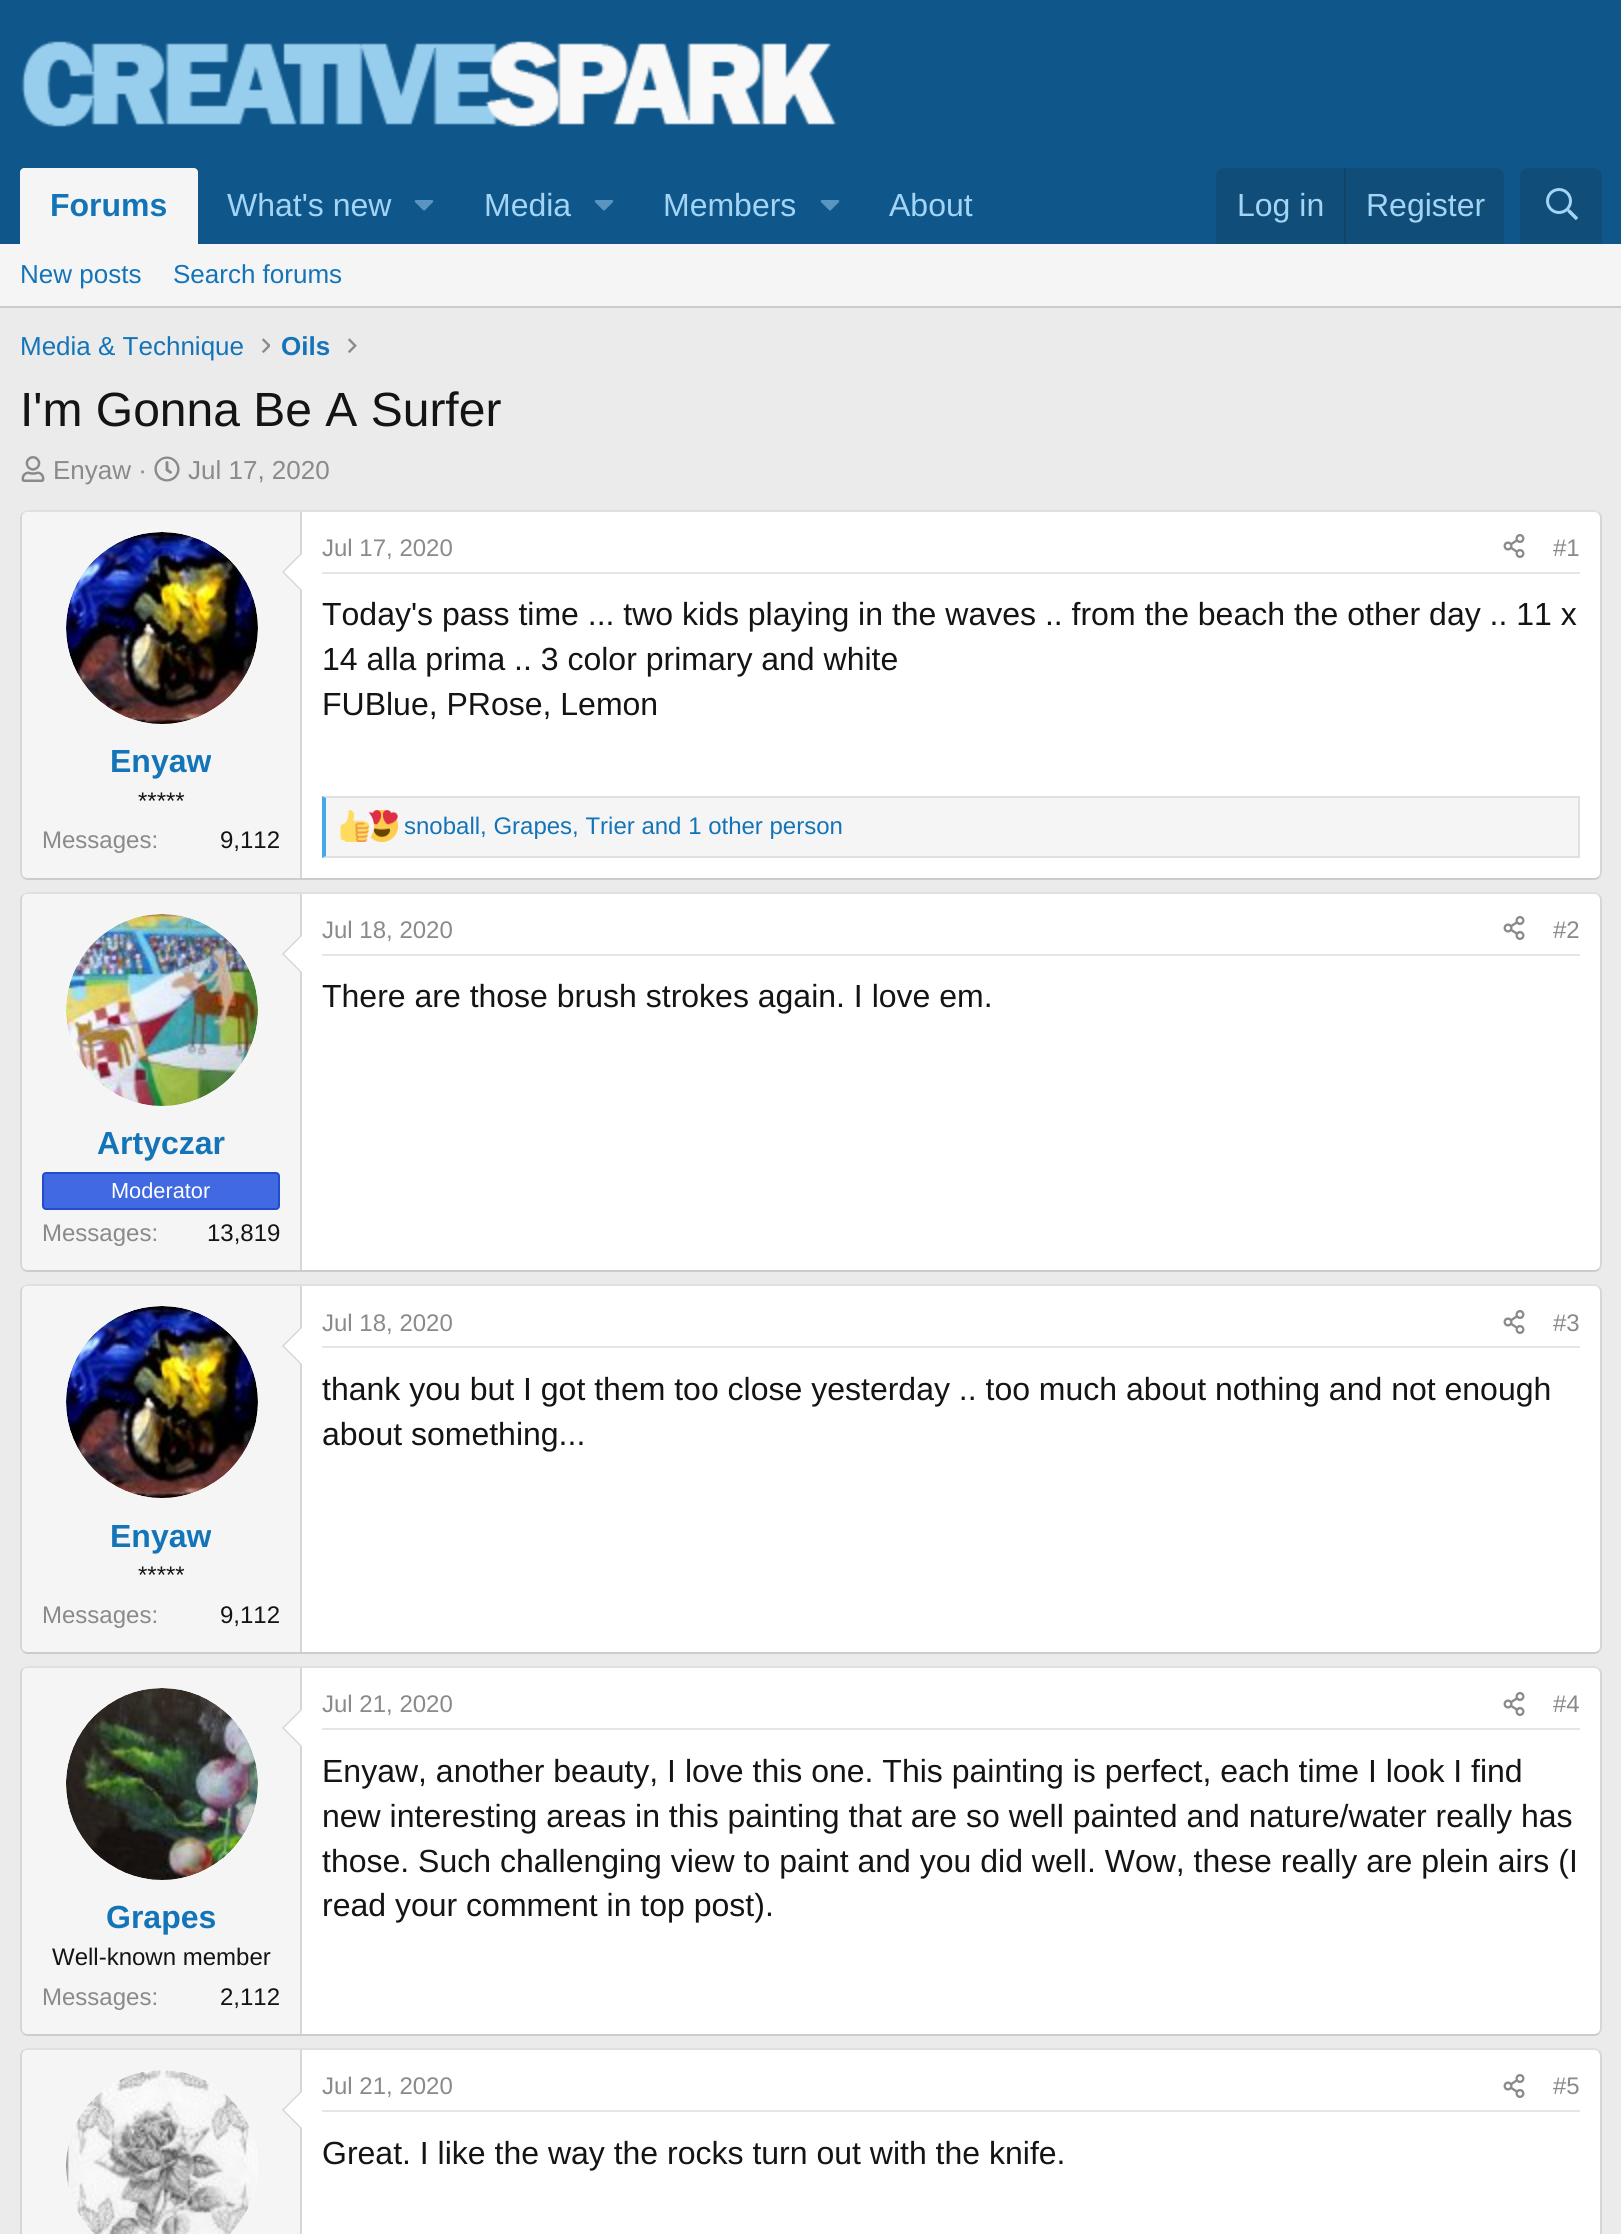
import math
import cairo

surface = cairo.ImageSurface(cairo.FORMAT_RGB24, 1621, 2234)
c = cairo.Context(surface)
options = cairo.FontOptions()
options.set_hint_metrics(cairo.HINT_METRICS_OFF)
options.set_hint_style(cairo.HINT_STYLE_NONE)
c.set_font_options(options)
c.set_miter_limit(4)
def C(code):
 c.set_source_rgb(*(v / 255 for v in bytes.fromhex(code[-6:])))
def F(family, size, italic, bold):
 c.select_font_face(family, cairo.FONT_SLANT_ITALIC if italic else cairo.FONT_SLANT_NORMAL, cairo.FONT_WEIGHT_BOLD if bold else cairo.FONT_WEIGHT_NORMAL)
 c.set_font_size(size)
def T(x, y, s):
 c.move_to(x, y)
 c.show_text(s)
def R(x, y, w, h):
 c.rectangle(x, y, w, h)
 c.fill()
def Q(x, y, w, h, r):
 c.new_sub_path()
 for i, (u, v) in enumerate([(x + w - r, y + h - r), (x + r, y + h - r), (x + r, y + r), (x + w - r, y + r)]):
  c.arc(u, v, r, i * math.pi / 2, (i + 1) * math.pi / 2)
 c.close_path()
def I(path, x, y, w, h):
 c.save()
 c.set_source_surface(cairo.ImageSurface.create_from_png(path), x, y)
 c.rectangle(x, y, w, h)
 c.fill()
 c.restore()
C('ebebeb')
c.paint()
C('0f578a')
R(0,0,1621,244)
I('1.png',21,41,816,86)
C('f5f5f5')
c.new_path()
c.move_to(24,168)
c.line_to(194,168)
c.curve_to(196,168,198,170,198,172)
c.line_to(198,244)
c.line_to(20,244)
c.line_to(20,172)
c.curve_to(20,170,22,168,24,168)
c.close_path()
c.fill()
F('Liberation Sans',32,0,1)
C('1474b8')
T(50,216,'Forums')
F('Liberation Sans',32,0,0)
C('a3d4f5')
T(227,216,'What\'s new')
I('2.png',414,200,20,11)
T(484,216,'Media')
I('2.png',594,200,20,11)
T(663,216,'Members')
I('2.png',820,200,20,11)
T(889,216,'About')
C('104d78')
c.new_path()
c.move_to(1224,168)
c.line_to(1496,168)
c.curve_to(1500.5,168,1504,171.5,1504,176)
c.line_to(1504,244)
c.line_to(1216,244)
c.line_to(1216,176)
c.curve_to(1216,171.5,1219.5,168,1224,168)
c.close_path()
c.fill()
C('a3d4f5')
T(1237,216,'Log in')
C('114469')
R(1344,168,2,76)
C('a3d4f5')
T(1366,216,'Register')
C('104d78')
c.new_path()
c.move_to(1528,168)
c.line_to(1594,168)
c.curve_to(1598.5,168,1602,171.5,1602,176)
c.line_to(1602,244)
c.line_to(1520,244)
c.line_to(1520,176)
c.curve_to(1520,171.5,1523.5,168,1528,168)
c.close_path()
c.fill()
I('3.png',1546,188,32,32)
C('f5f5f5')
R(0,244,1621,62)
C('cccccc')
R(0,306,1621,2)
F('Liberation Sans',26,0,0)
C('1474b8')
T(20,283,'New posts')
T(173,283,'Search forums')
T(20,355,'Media & Technique')
I('4.png',262,338,8,15)
F('Liberation Sans',26,0,1)
T(281,355,'Oils')
I('5.png',348,338,9,15)
F('Liberation Sans',48,0,0)
C('141414')
T(20,426,'I\'m Gonna Be A Surfer')
I('6.png',21,456,24,26)
F('Liberation Sans',26,0,0)
C('8a8a8a')
T(53,479,'Enyaw ·')
I('7.png',154,456,26,26)
T(188,479,'Jul 17, 2020')
C('ffffff')
Q(20,510,1582,370,8)
c.fill()
c.new_path()
c.move_to(23,513)
c.curve_to(24.5,511.5,26,511,28,511)
c.line_to(1594,511)
c.curve_to(1596,511,1597.5,511.5,1599,513)
C('e0e0e0')
c.stroke()
c.new_path()
c.move_to(1599,513)
c.curve_to(1600.5,514.5,1601,516,1601,518)
c.line_to(1601,872)
c.curve_to(1601,874,1600.5,875.5,1599,877)
C('d6d6d6')
c.stroke()
c.new_path()
c.move_to(1599,877)
c.curve_to(1597.5,878.5,1596,879,1594,879)
c.line_to(28,879)
c.curve_to(26,879,24.5,878.5,23,877)
C('cccccc')
c.stroke()
c.new_path()
c.move_to(23,877)
c.curve_to(21.5,875.5,21,874,21,872)
c.line_to(21,518)
c.curve_to(21,516,21.5,514.5,23,513)
C('d6d6d6')
c.stroke()
C('f5f5f5')
c.new_path()
c.move_to(28,512)
c.line_to(302,512)
c.line_to(302,878)
c.line_to(28,878)
c.curve_to(24.5,878,22,875.5,22,872)
c.line_to(22,518)
c.curve_to(22,514.5,24.5,512,28,512)
c.close_path()
c.fill()
C('d6d6d6')
R(300,512,2,366)
C('ffffff')
c.arc(162,628,96,0,2 * math.pi)
c.fill()
I('8.png',66,532,192,192)
C('d6d6d6')
c.new_path()
c.move_to(302,552)
c.line_to(302,592)
c.line_to(282,572)
c.close_path()
c.fill()
C('ffffff')
c.new_path()
c.move_to(302,554)
c.line_to(302,590)
c.line_to(284,572)
c.close_path()
c.fill()
F('Liberation Sans',32,0,1)
C('1474b8')
T(110,772,'Enyaw')
F('Liberation Sans',24,0,0)
C('141414')
T(138,809,'*****')
C('8a8a8a')
T(42,848,'Messages:')
C('141414')
T(220,848,'9,112')
C('e5e5e5')
R(322,572,1258,2)
C('8a8a8a')
T(322,556,'Jul 17, 2020')
I('9.png',1503,534,22,24)
T(1553,556,'#1')
F('Liberation Sans',32,0,0)
C('141414')
T(322,625,'Today\'s pass time ... two kids playing in the waves .. from the beach the other day .. 11 x')
T(322,670,'14 alla prima .. 3 color primary and white')
T(322,715,'FUBlue, PRose, Lemon')
C('f5f5f5')
R(326,798,1252,58)
C('e0e0e0')
c.new_path()
c.move_to(322,796)
c.line_to(1580,796)
c.line_to(1578,798)
c.line_to(326,798)
c.close_path()
c.fill()
R(1578,796,2,62)
c.new_path()
c.move_to(1580,858)
c.line_to(322,858)
c.line_to(326,856)
c.line_to(1578,856)
c.close_path()
c.fill()
C('47a7eb')
c.new_path()
c.move_to(322,858)
c.line_to(322,796)
c.line_to(326,798)
c.line_to(326,856)
c.close_path()
c.fill()
I('11.png',368,810,30,32)
C('f5f5f5')
c.arc(354,826,20,0,2 * math.pi)
c.fill()
I('10.png',340,810,30,32)
F('Liberation Sans',24,0,0)
C('1474b8')
T(404,834,'snoball, Grapes, Trier and 1 other person')
C('ffffff')
Q(20,892,1582,380,8)
c.fill()
c.new_path()
c.move_to(23,895)
c.curve_to(24.5,893.5,26,893,28,893)
c.line_to(1594,893)
c.curve_to(1596,893,1597.5,893.5,1599,895)
C('e0e0e0')
c.stroke()
c.new_path()
c.move_to(1599,895)
c.curve_to(1600.5,896.5,1601,898,1601,900)
c.line_to(1601,1264)
c.curve_to(1601,1266,1600.5,1267.5,1599,1269)
C('d6d6d6')
c.stroke()
c.new_path()
c.move_to(1599,1269)
c.curve_to(1597.5,1270.5,1596,1271,1594,1271)
c.line_to(28,1271)
c.curve_to(26,1271,24.5,1270.5,23,1269)
C('cccccc')
c.stroke()
c.new_path()
c.move_to(23,1269)
c.curve_to(21.5,1267.5,21,1266,21,1264)
c.line_to(21,900)
c.curve_to(21,898,21.5,896.5,23,895)
C('d6d6d6')
c.stroke()
C('e5e5e5')
R(322,954,1258,2)
C('8a8a8a')
T(322,938,'Jul 18, 2020')
I('9.png',1503,916,22,24)
T(1553,938,'#2')
F('Liberation Sans',32,0,0)
C('141414')
T(322,1007,'There are those brush strokes again. I love em.')
C('f5f5f5')
c.new_path()
c.move_to(28,894)
c.line_to(302,894)
c.line_to(302,1270)
c.line_to(28,1270)
c.curve_to(24.5,1270,22,1267.5,22,1264)
c.line_to(22,900)
c.curve_to(22,896.5,24.5,894,28,894)
c.close_path()
c.fill()
C('d6d6d6')
R(300,894,2,376)
C('ffffff')
c.arc(162,1010,96,0,2 * math.pi)
c.fill()
I('12.png',66,914,192,192)
C('d6d6d6')
c.new_path()
c.move_to(302,934)
c.line_to(302,974)
c.line_to(282,954)
c.close_path()
c.fill()
C('ffffff')
c.new_path()
c.move_to(302,936)
c.line_to(302,972)
c.line_to(284,954)
c.close_path()
c.fill()
F('Liberation Sans',32,0,1)
C('1474b8')
T(97,1154,'Artyczar')
C('4169e1')
Q(43,1173,236,36,3)
c.fill_preserve()
C('214cce')
c.stroke()
F('Liberation Sans',21.75,0,0)
C('ffffff')
T(111,1198,'Moderator')
F('Liberation Sans',24,0,0)
C('8a8a8a')
T(42,1241,'Messages:')
C('141414')
T(207,1241,'13,819')
C('ffffff')
Q(20,1284,1582,370,8)
c.fill()
c.new_path()
c.move_to(23,1287)
c.curve_to(24.5,1285.5,26,1285,28,1285)
c.line_to(1594,1285)
c.curve_to(1596,1285,1597.5,1285.5,1599,1287)
C('e0e0e0')
c.stroke()
c.new_path()
c.move_to(1599,1287)
c.curve_to(1600.5,1288.5,1601,1290,1601,1292)
c.line_to(1601,1646)
c.curve_to(1601,1648,1600.5,1649.5,1599,1651)
C('d6d6d6')
c.stroke()
c.new_path()
c.move_to(1599,1651)
c.curve_to(1597.5,1652.5,1596,1653,1594,1653)
c.line_to(28,1653)
c.curve_to(26,1653,24.5,1652.5,23,1651)
C('cccccc')
c.stroke()
c.new_path()
c.move_to(23,1651)
c.curve_to(21.5,1649.5,21,1648,21,1646)
c.line_to(21,1292)
c.curve_to(21,1290,21.5,1288.5,23,1287)
C('d6d6d6')
c.stroke()
C('e5e5e5')
R(322,1346,1258,2)
C('8a8a8a')
T(322,1331,'Jul 18, 2020')
I('9.png',1503,1310,22,24)
T(1553,1331,'#3')
F('Liberation Sans',32,0,0)
C('141414')
T(322,1400,'thank you but I got them too close yesterday .. too much about nothing and not enough')
T(322,1445,'about something...')
C('f5f5f5')
c.new_path()
c.move_to(28,1286)
c.line_to(302,1286)
c.line_to(302,1652)
c.line_to(28,1652)
c.curve_to(24.5,1652,22,1649.5,22,1646)
c.line_to(22,1292)
c.curve_to(22,1288.5,24.5,1286,28,1286)
c.close_path()
c.fill()
C('d6d6d6')
R(300,1286,2,366)
C('ffffff')
c.arc(162,1402,96,0,2 * math.pi)
c.fill()
I('8.png',66,1306,192,192)
C('d6d6d6')
c.new_path()
c.move_to(302,1326)
c.line_to(302,1366)
c.line_to(282,1346)
c.close_path()
c.fill()
C('ffffff')
c.new_path()
c.move_to(302,1328)
c.line_to(302,1364)
c.line_to(284,1346)
c.close_path()
c.fill()
F('Liberation Sans',32,0,1)
C('1474b8')
T(110,1547,'Enyaw')
F('Liberation Sans',24,0,0)
C('141414')
T(138,1583,'*****')
C('8a8a8a')
T(42,1623,'Messages:')
C('141414')
T(220,1623,'9,112')
C('ffffff')
Q(20,1666,1582,370,8)
c.fill()
c.new_path()
c.move_to(23,1669)
c.curve_to(24.5,1667.5,26,1667,28,1667)
c.line_to(1594,1667)
c.curve_to(1596,1667,1597.5,1667.5,1599,1669)
C('e0e0e0')
c.stroke()
c.new_path()
c.move_to(1599,1669)
c.curve_to(1600.5,1670.5,1601,1672,1601,1674)
c.line_to(1601,2028)
c.curve_to(1601,2030,1600.5,2031.5,1599,2033)
C('d6d6d6')
c.stroke()
c.new_path()
c.move_to(1599,2033)
c.curve_to(1597.5,2034.5,1596,2035,1594,2035)
c.line_to(28,2035)
c.curve_to(26,2035,24.5,2034.5,23,2033)
C('cccccc')
c.stroke()
c.new_path()
c.move_to(23,2033)
c.curve_to(21.5,2031.5,21,2030,21,2028)
c.line_to(21,1674)
c.curve_to(21,1672,21.5,1670.5,23,1669)
C('d6d6d6')
c.stroke()
C('e5e5e5')
R(322,1728,1258,2)
C('8a8a8a')
T(322,1712,'Jul 21, 2020')
I('9.png',1503,1692,22,24)
T(1553,1712,'#4')
F('Liberation Sans',32,0,0)
C('141414')
T(322,1782,'Enyaw, another beauty, I love this one. This painting is perfect, each time I look I find')
T(322,1827,'new interesting areas in this painting that are so well painted and nature/water really has')
T(322,1872,'those. Such challenging view to paint and you did well. Wow, these really are plein airs (I')
T(322,1916,'read your comment in top post).')
C('f5f5f5')
c.new_path()
c.move_to(28,1668)
c.line_to(302,1668)
c.line_to(302,2034)
c.line_to(28,2034)
c.curve_to(24.5,2034,22,2031.5,22,2028)
c.line_to(22,1674)
c.curve_to(22,1670.5,24.5,1668,28,1668)
c.close_path()
c.fill()
C('d6d6d6')
R(300,1668,2,366)
C('ffffff')
c.arc(162,1784,96,0,2 * math.pi)
c.fill()
I('13.png',66,1688,192,192)
C('d6d6d6')
c.new_path()
c.move_to(302,1708)
c.line_to(302,1748)
c.line_to(282,1728)
c.close_path()
c.fill()
C('ffffff')
c.new_path()
c.move_to(302,1710)
c.line_to(302,1746)
c.line_to(284,1728)
c.close_path()
c.fill()
F('Liberation Sans',32,0,1)
C('1474b8')
T(106,1928,'Grapes')
F('Liberation Sans',24,0,0)
C('141414')
T(52,1965,'Well-known member')
C('8a8a8a')
T(42,2005,'Messages:')
C('141414')
T(220,2005,'2,112')
C('ffffff')
Q(20,2048,1582,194,8)
c.fill()
c.new_path()
c.move_to(23,2051)
c.curve_to(24.5,2049.5,26,2049,28,2049)
c.line_to(1594,2049)
c.curve_to(1596,2049,1597.5,2049.5,1599,2051)
C('e0e0e0')
c.stroke()
c.new_path()
c.move_to(1599,2051)
c.curve_to(1600.5,2052.5,1601,2054,1601,2056)
c.line_to(1601,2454)
c.curve_to(1601,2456,1600.5,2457.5,1599,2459)
C('d6d6d6')
c.stroke()
c.new_path()
c.move_to(23,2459)
c.curve_to(21.5,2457.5,21,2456,21,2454)
c.line_to(21,2056)
c.curve_to(21,2054,21.5,2052.5,23,2051)
c.stroke()
C('f5f5f5')
c.new_path()
c.move_to(28,2050)
c.line_to(302,2050)
c.line_to(302,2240)
c.line_to(28,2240)
c.curve_to(24.5,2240,22,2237.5,22,2234)
c.line_to(22,2056)
c.curve_to(22,2052.5,24.5,2050,28,2050)
c.close_path()
c.fill()
C('d6d6d6')
R(300,2050,2,184)
C('ffffff')
c.arc(162,2166,96,0,2 * math.pi)
c.fill()
I('14.png',66,2070,192,164)
C('d6d6d6')
c.new_path()
c.move_to(302,2090)
c.line_to(302,2130)
c.line_to(282,2110)
c.close_path()
c.fill()
C('ffffff')
c.new_path()
c.move_to(302,2092)
c.line_to(302,2128)
c.line_to(284,2110)
c.close_path()
c.fill()
C('e5e5e5')
R(322,2110,1258,2)
C('8a8a8a')
T(322,2094,'Jul 21, 2020')
I('9.png',1503,2074,22,24)
T(1553,2094,'#5')
F('Liberation Sans',32,0,0)
C('141414')
T(322,2164,'Great. I like the way the rocks turn out with the knife.')
surface.write_to_png('o.png')
